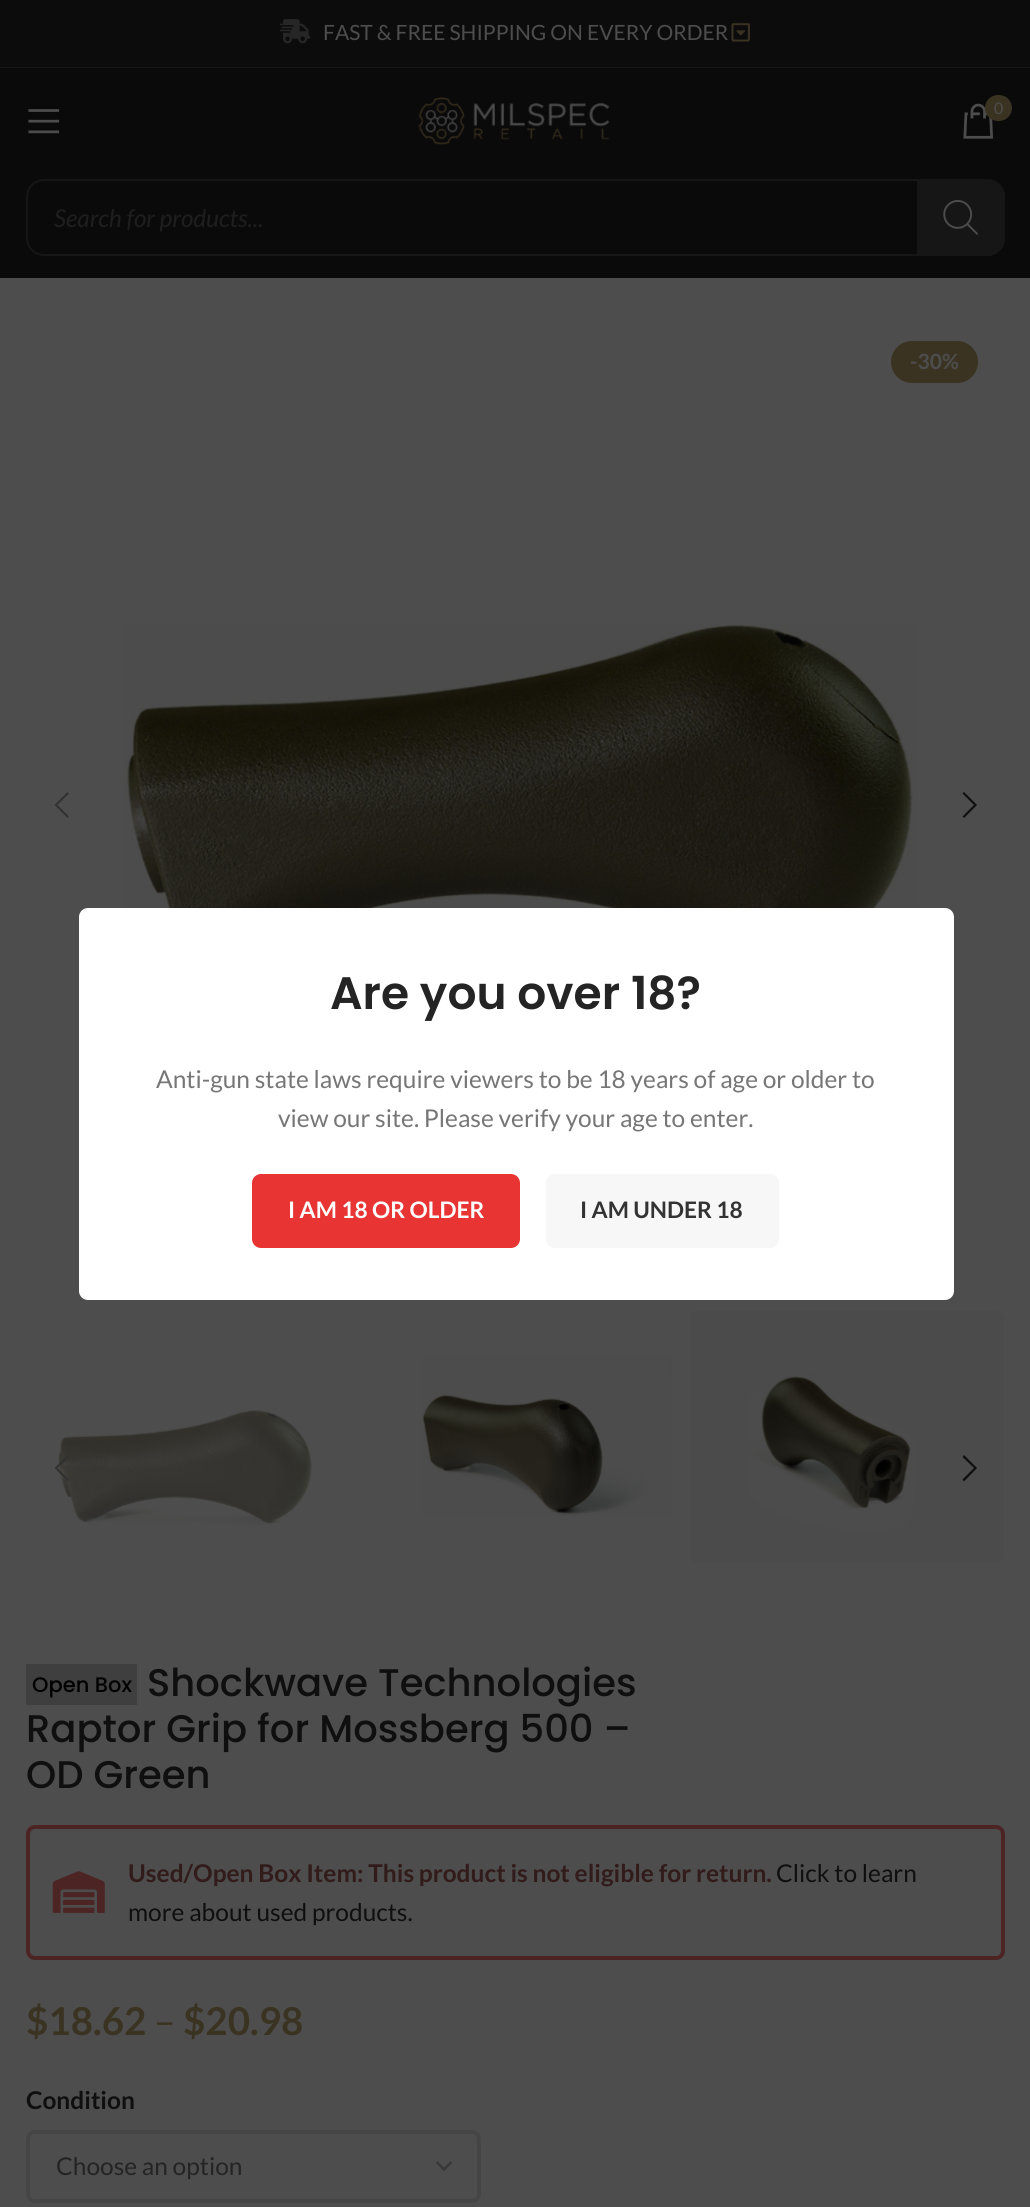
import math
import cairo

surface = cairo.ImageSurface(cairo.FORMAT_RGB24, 1030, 2207)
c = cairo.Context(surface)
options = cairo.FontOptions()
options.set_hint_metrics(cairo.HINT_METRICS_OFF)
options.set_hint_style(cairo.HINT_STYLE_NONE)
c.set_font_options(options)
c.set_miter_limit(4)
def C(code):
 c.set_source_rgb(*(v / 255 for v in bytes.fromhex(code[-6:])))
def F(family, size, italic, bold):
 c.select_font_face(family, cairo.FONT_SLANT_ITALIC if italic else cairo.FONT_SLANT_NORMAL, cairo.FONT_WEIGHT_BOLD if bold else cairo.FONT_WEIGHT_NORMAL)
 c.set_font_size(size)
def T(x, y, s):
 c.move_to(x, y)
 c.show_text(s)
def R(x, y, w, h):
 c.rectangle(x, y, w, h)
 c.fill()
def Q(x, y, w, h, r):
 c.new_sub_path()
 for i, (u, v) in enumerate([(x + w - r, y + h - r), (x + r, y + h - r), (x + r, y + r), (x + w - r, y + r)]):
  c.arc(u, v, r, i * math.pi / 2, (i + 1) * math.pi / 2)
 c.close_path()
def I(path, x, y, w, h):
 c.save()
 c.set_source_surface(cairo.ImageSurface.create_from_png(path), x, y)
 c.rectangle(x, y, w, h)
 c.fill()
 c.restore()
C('4d4d4d')
c.paint()
C('0c0c0c')
R(0,0,1030,67)
C('161616')
R(0,67,1030,1)
I('1.png',280,19,31,25)
F('Lato',21,0,0)
C('4d4d4d')
T(323,40,'FAST & FREE SHIPPING ON EVERY ORDER')
I('2.png',731,23,19,19)
C('0a0a0a')
R(0,68,1030,210)
I('3.png',28,109,32,25)
I('4.png',418,97,192,49)
I('5.png',963,103,31,36)
C('3b3322')
Q(985,95,27,26,13)
c.fill()
F('Lato',16,0,0)
C('4d4d4d')
T(994,114,'0')
Q(27,180,977,75,17)
C('161616')
c.stroke()
F('Lato',24.5,1,0)
C('1e1e1e')
T(54,227,'Search for products...')
C('161616')
c.new_path()
c.move_to(917,179)
c.line_to(987,179)
c.curve_to(997,179,1005,187,1005,197)
c.line_to(1005,238)
c.curve_to(1005,248,997,256,987,256)
c.line_to(917,256)
c.close_path()
c.fill()
I('6.png',943,200,35,35)
C('3b3322')
Q(891,341,87,42,21)
c.fill()
F('Lato',21,0,1)
C('4d4d4d')
T(910,369,'-30%')
I('7.png',124,624,794,284)
C('323232')
c.new_path()
c.move_to(69,793.5)
c.line_to(67.5,792)
c.line_to(54.5,805)
c.line_to(67.5,818)
c.line_to(69,816.5)
c.line_to(57.5,805)
c.close_path()
c.fill()
C('0f0f0f')
c.new_path()
c.move_to(962.5,793.5)
c.line_to(974,805)
c.line_to(962.5,816.5)
c.line_to(964,818)
c.line_to(977,805)
c.line_to(964,792)
c.close_path()
c.fill()
I('8.png',58,1410,254,116)
I('9.png',422,1357,250,159)
I('10.png',690,1311,314,252)
C('323232')
c.new_path()
c.move_to(69,1457)
c.line_to(67.5,1455)
c.line_to(54.5,1468)
c.line_to(67.5,1481.5)
c.line_to(69,1479.5)
c.line_to(57.5,1468)
c.close_path()
c.fill()
C('0f0f0f')
c.new_path()
c.move_to(962.5,1457)
c.line_to(974,1468)
c.line_to(962.5,1479.5)
c.line_to(964,1481.5)
c.line_to(977,1468)
c.line_to(964,1455)
c.close_path()
c.fill()
C('3f3f3f')
R(26,1664,111,41)
F('Poppins Medium',21,0,0)
C('000000')
T(32,1692,'Open Box')
F('Poppins Medium',38.5,0,0)
C('0f0f0f')
T(147,1696,'Shockwave Technologies')
T(26,1742,'Raptor Grip for Mossberg 500 –')
T(26,1788,'OD Green')
Q(28,1827,975,131,7)
C('4d2424')
c.set_line_width(4)
c.stroke()
I('11.png',52,1871,53,42)
F('Lato',24.5,0,1)
C('321b1b')
T(128,1882,'Used/Open Box Item: This product is not eligible for return.')
F('Lato',24.5,0,0)
C('0f0f0f')
T(776,1882,'Click to learn')
T(128,1921,'more about used products.')
F('Lato',38.5,0,1)
C('3b3322')
T(26,2035,'$18.62')
F('Lato',38.5,0,0)
T(154,2035,'–')
F('Lato',38.5,0,1)
T(183,2035,'$20.98')
F('Lato',24.5,0,1)
C('0f0f0f')
T(26,2109,'Condition')
c.new_path()
c.move_to(436.5,2162)
c.line_to(444,2169.5)
c.line_to(451.5,2162)
C('383838')
c.set_line_width(2.5)
c.stroke()
Q(28,2132,451,69,7)
C('454545')
c.set_line_width(4)
c.stroke()
F('Lato',24.5,0,0)
C('242424')
T(56,2175,'Choose an option')
C('ffffff')
Q(79,908,875,392,9)
c.fill()
F('Poppins SemiBold',45.5,0,0)
C('242424')
T(330,1009,'Are you over 18?')
F('Lato',24.5,0,0)
C('767676')
T(156,1088,'Anti-gun state laws require viewers to be 18 years of age or older to')
T(278,1127,'view our site. Please verify your age to enter.')
C('e93434')
Q(252,1174,268,74,9)
c.fill()
F('Lato',22.75,0,1)
C('ffffff')
T(288,1218,'I AM 18 OR OLDER')
C('f7f7f7')
Q(546,1174,233,74,9)
c.fill()
C('333333')
T(580,1218,'I AM UNDER 18')
surface.write_to_png('o.png')
